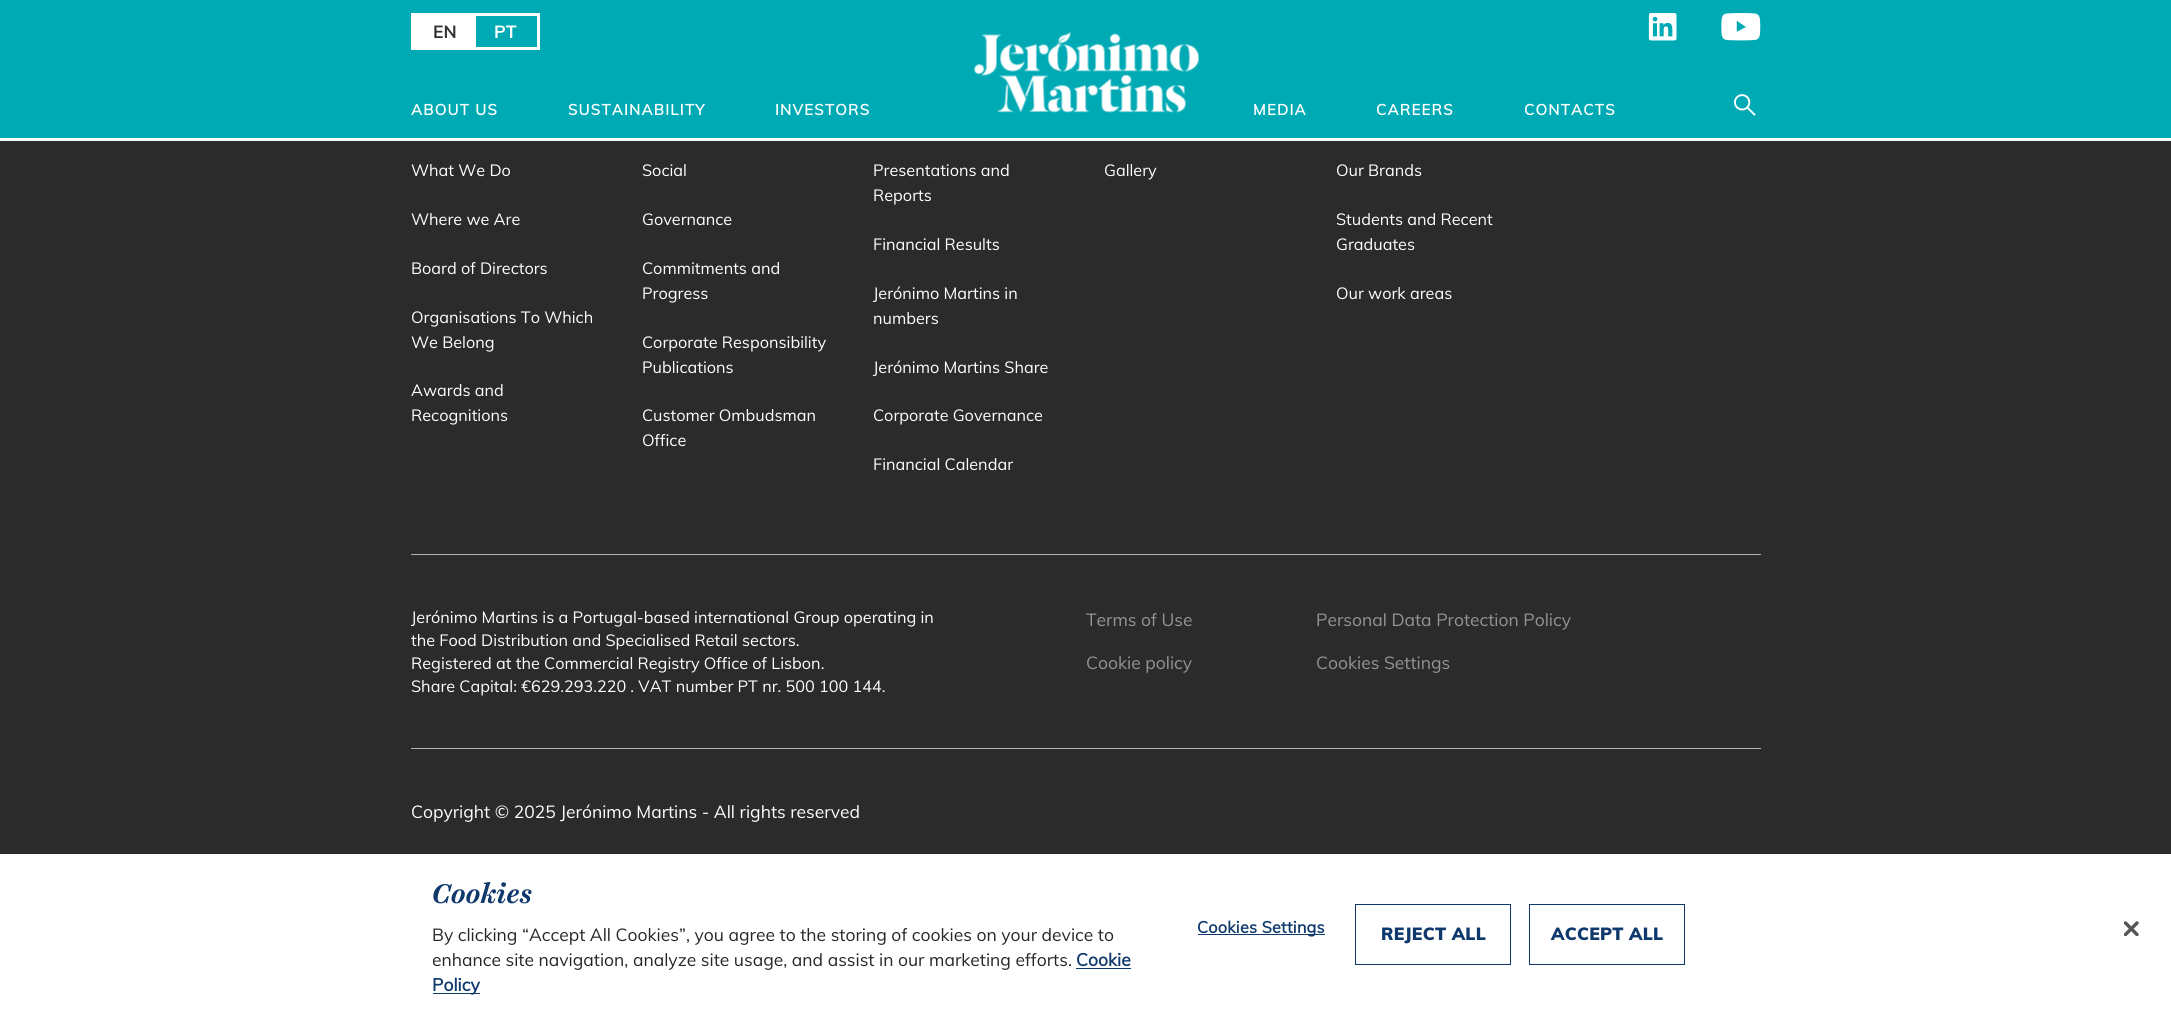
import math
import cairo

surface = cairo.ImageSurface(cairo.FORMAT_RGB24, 2171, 1009)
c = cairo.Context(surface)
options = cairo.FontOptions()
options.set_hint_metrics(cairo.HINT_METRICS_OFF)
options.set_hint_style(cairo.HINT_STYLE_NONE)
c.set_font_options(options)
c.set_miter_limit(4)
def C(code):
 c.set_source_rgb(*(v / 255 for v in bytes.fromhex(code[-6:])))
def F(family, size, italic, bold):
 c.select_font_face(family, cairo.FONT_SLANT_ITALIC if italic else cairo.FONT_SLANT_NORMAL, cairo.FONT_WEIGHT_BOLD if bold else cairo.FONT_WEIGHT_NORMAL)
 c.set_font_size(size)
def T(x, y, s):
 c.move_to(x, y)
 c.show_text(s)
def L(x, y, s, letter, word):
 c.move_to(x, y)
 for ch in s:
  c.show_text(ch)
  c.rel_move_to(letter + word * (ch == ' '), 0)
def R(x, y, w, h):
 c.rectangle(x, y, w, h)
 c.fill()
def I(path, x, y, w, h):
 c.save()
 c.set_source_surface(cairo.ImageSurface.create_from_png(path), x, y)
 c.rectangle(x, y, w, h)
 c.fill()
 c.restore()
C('2b2b2b')
c.paint()
C('00aab4')
R(0,0,2171,138)
C('ffffff')
R(0,138,2171,3)
c.rectangle(412.5,14.5,126,34)
c.set_line_width(3)
c.stroke()
R(414,16,62,31)
F('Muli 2',17.5,0,1)
C('333333')
T(433,38,'EN')
C('ffffff')
T(494,38,'PT')
I('1.png',1648,13,29,28)
I('2.png',1721,13,40,28)
I('3.png',974,32,225,81)
I('4.png',1734,94,22,22)
F('Muli',15,0,1)
L(411,115,'ABOUT US',1.25,0)
L(568,115,'SUSTAINABILITY',1.25,0)
L(775,115,'INVESTORS',1.25,0)
L(1253,115,'MEDIA',1.25,0)
L(1376,115,'CAREERS',1.25,0)
L(1524,115,'CONTACTS',1.25,0)
F('Muli',16.25,0,0)
T(411,176,'What We Do')
T(411,225,'Where we Are')
T(411,274,'Board of Directors')
T(411,323,'Organisations To Which')
T(411,348,'We Belong')
T(411,396,'Awards and')
T(411,421,'Recognitions')
T(642,176,'Social')
T(642,225,'Governance')
T(642,274,'Commitments and')
T(642,299,'Progress')
T(642,348,'Corporate Responsibility')
T(642,373,'Publications')
T(642,421,'Customer Ombudsman')
T(642,446,'Office')
T(873,176,'Presentations and')
T(873,201,'Reports')
T(873,250,'Financial Results')
T(873,299,'Jerónimo Martins in')
T(873,324,'numbers')
T(873,373,'Jerónimo Martins Share')
T(873,421,'Corporate Governance')
T(873,470,'Financial Calendar')
T(1104,176,'Gallery')
T(1336,176,'Our Brands')
T(1336,225,'Students and Recent')
T(1336,250,'Graduates')
T(1336,299,'Our work areas')
C('b2b2b2')
R(411,554,1350,1)
R(411,748,1350,1)
C('ffffff')
T(411,623,'Jerónimo Martins is a Portugal-based international Group operating in')
T(411,646,'the Food Distribution and Specialised Retail sectors.')
T(411,669,'Registered at the Commercial Registry Office of Lisbon.')
T(411,692,'Share Capital: €629.293.220 . VAT number PT nr. 500 100 144.')
F('Muli',17.5,0,0)
C('949494')
T(1086,626,'Terms of Use')
T(1316,626,'Personal Data Protection Policy')
T(1086,669,'Cookie policy')
T(1316,669,'Cookies Settings')
C('ffffff')
T(411,818,'Copyright © 2025 Jerónimo Martins - All rights reserved')
R(0,854,2171,155)
F('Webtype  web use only',27.5,1,1)
C('0f396c')
T(432,903,'Cookies')
F('Muli',17.5,0,0)
C('262626')
T(432,941,'By clicking “Accept All Cookies”, you agree to the storing of cookies on your device to')
c.save()
c.rectangle(433,879,722,119)
c.clip()
T(432,966,'enhance site navigation, analyze site usage, and assist in our marketing efforts.')
c.restore()
F('Muli',17.5,0,1)
C('0f396c')
T(1076,966,'Cookie')
C('0f396b')
R(1076,968,55,1)
R(433,993,47,1)
C('0f396c')
T(432,991,'Policy')
C('0f396b')
R(1198,934,127,1)
F('Muli',16.25,0,1)
C('0f396c')
L(1197,933,'Cookies Settings',.2,0)
c.rectangle(1355.5,904.5,155,60)
c.set_line_width(1)
c.stroke()
F('Muli Black',17.5,0,0)
L(1381,940,'REJECT ALL',.25,0)
c.rectangle(1529.5,904.5,155,60)
c.stroke()
L(1551,940,'ACCEPT ALL',.25,0)
I('5.png',2124,921,15,15)
surface.write_to_png('o.png')
